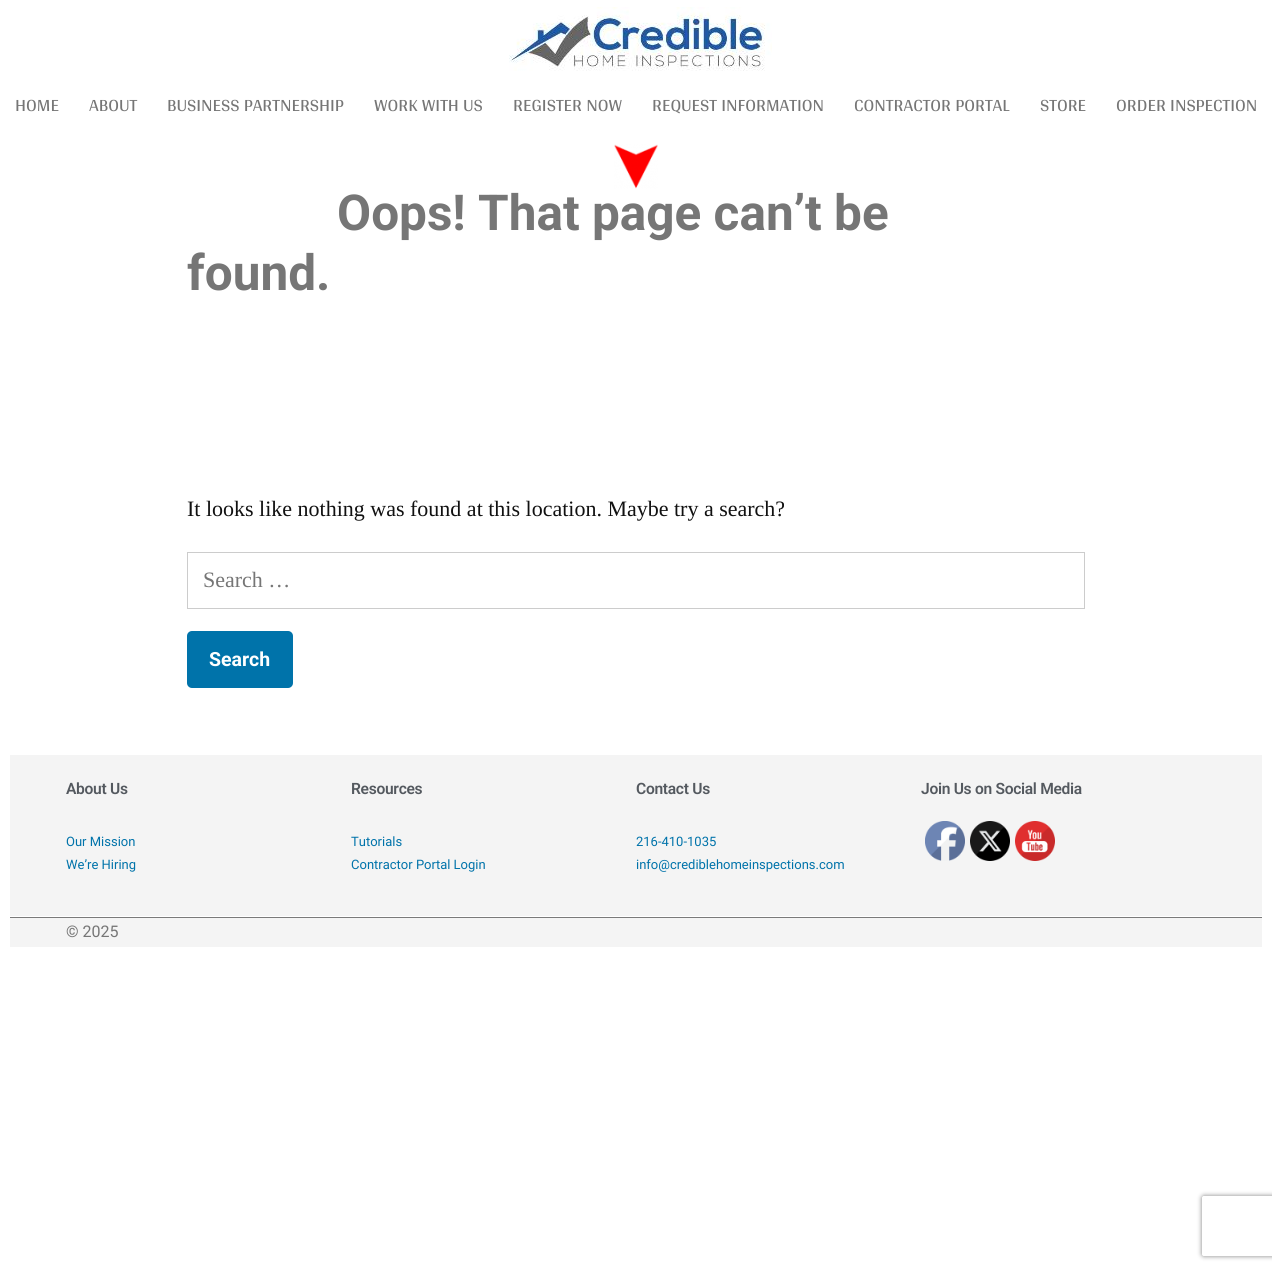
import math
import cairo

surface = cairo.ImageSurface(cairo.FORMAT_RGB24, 1272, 1270)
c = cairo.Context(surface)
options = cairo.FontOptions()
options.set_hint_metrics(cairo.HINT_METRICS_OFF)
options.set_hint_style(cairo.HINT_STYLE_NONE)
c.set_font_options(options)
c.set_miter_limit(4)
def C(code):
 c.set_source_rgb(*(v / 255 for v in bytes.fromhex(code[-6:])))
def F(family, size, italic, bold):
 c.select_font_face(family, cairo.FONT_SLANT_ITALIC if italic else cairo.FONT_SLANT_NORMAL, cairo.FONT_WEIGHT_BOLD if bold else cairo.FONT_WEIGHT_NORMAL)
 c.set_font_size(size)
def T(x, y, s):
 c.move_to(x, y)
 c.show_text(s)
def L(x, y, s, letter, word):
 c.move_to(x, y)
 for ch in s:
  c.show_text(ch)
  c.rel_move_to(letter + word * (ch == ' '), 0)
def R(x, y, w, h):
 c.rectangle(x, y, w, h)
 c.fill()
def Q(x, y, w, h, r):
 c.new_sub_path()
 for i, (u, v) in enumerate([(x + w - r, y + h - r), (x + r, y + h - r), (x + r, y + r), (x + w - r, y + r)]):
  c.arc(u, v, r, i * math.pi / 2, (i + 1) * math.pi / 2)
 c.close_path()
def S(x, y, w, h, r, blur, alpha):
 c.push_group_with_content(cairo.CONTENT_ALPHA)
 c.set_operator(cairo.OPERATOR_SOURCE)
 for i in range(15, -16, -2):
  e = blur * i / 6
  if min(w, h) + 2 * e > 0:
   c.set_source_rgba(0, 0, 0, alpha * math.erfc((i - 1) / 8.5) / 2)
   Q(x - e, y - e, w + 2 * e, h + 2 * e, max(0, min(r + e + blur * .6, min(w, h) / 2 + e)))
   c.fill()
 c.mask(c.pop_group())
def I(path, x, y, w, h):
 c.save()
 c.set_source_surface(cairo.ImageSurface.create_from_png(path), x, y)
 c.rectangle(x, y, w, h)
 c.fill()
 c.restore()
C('ffffff')
c.paint()
I('1.png',509,7,263,64)
F('Arya',18,0,0)
C('767676')
T(15,111,'HOME')
T(89,111,'ABOUT')
T(167,111,'BUSINESS PARTNERSHIP')
T(374,111,'WORK WITH US')
T(513,111,'REGISTER NOW')
T(652,111,'REQUEST INFORMATION')
T(854,111,'CONTRACTOR PORTAL')
T(1040,111,'STORE')
T(1116,111,'ORDER INSPECTION')
I('2.png',614,144,44,45)
F('Roboto',49.5,0,1)
T(337,230,'Oops! That page can’t be')
T(187,290,'found.')
F('Liberation Serif',22,0,0)
C('111111')
T(187,516,'It looks like nothing was found at this location. Maybe try a search?')
c.rectangle(187.5,552.5,897,56)
C('cccccc')
c.set_line_width(1)
c.stroke()
C('767676')
T(203,587,'Search …')
C('0073aa')
Q(187,631,106,57,5)
c.fill()
F('Roboto',19.5,0,1)
C('ffffff')
T(209,666,'Search')
C('f4f4f4')
R(10,755,1252,161)
F('Roboto SemiBold',15.6,0,0)
C('54595f')
L(66,794,'About Us',-.3,0)
F('Roboto',13,0,0)
C('0073aa')
T(66,846,'Our Mission')
T(66,869,'We’re Hiring')
F('Roboto SemiBold',15.6,0,0)
C('54595f')
L(351,794,'Resources',-.3,0)
F('Roboto',13,0,0)
C('0073aa')
T(351,846,'Tutorials')
T(351,869,'Contractor Portal Login')
F('Roboto SemiBold',15.6,0,0)
C('54595f')
L(636,794,'Contact Us',-.3,0)
F('Roboto',13,0,0)
C('0073aa')
T(636,846,'216-410-1035')
T(636,869,'info@crediblehomeinspections.com')
F('Roboto SemiBold',15.6,0,0)
C('54595f')
L(921,794,'Join Us on Social Media',-.3,0)
I('3.png',925,821,40,40)
I('4.png',970,821,40,40)
I('5.png',1015,821,40,40)
C('f4f4f4')
R(10,918,1252,29)
C('7a7a7a')
R(10,917,1252,1)
F('Roboto',16,0,0)
C('767676')
T(66,937,'© 2025')
c.save()
c.set_fill_rule(cairo.FILL_RULE_EVEN_ODD)
c.new_path()
c.move_to(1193,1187)
c.line_to(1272,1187)
c.line_to(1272,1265)
c.line_to(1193,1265)
c.close_path()
c.move_to(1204,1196)
c.line_to(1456,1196)
c.curve_to(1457,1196,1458,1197,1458,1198)
c.line_to(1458,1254)
c.curve_to(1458,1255,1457,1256,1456,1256)
c.line_to(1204,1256)
c.curve_to(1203,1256,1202,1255,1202,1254)
c.line_to(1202,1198)
c.curve_to(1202,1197,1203,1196,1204,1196)
c.close_path()
c.clip()
C('808080')
S(1202,1196,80,60,2,2.5,1)
c.restore()
surface.write_to_png('o.png')
